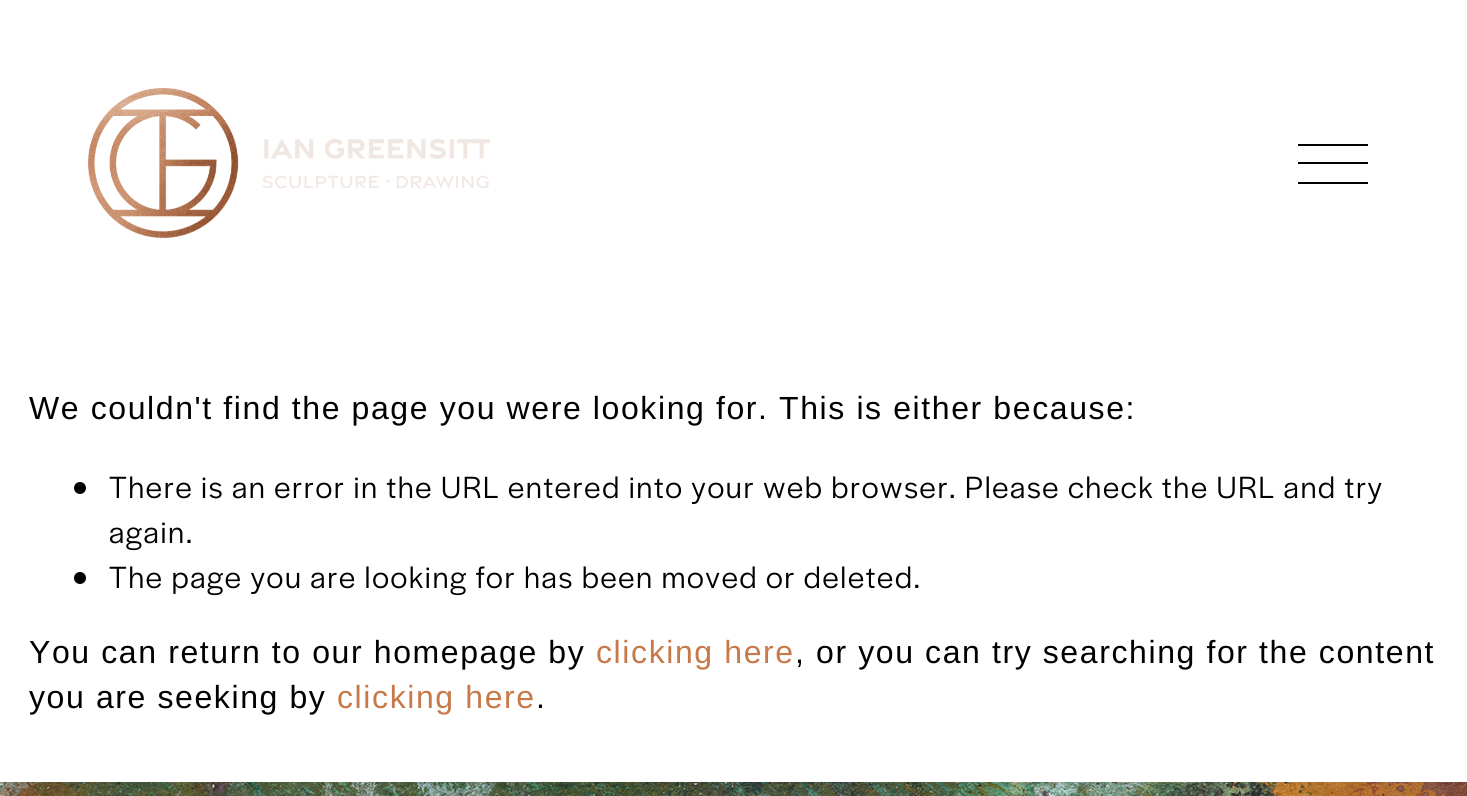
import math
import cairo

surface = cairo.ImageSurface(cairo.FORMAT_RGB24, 1467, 796)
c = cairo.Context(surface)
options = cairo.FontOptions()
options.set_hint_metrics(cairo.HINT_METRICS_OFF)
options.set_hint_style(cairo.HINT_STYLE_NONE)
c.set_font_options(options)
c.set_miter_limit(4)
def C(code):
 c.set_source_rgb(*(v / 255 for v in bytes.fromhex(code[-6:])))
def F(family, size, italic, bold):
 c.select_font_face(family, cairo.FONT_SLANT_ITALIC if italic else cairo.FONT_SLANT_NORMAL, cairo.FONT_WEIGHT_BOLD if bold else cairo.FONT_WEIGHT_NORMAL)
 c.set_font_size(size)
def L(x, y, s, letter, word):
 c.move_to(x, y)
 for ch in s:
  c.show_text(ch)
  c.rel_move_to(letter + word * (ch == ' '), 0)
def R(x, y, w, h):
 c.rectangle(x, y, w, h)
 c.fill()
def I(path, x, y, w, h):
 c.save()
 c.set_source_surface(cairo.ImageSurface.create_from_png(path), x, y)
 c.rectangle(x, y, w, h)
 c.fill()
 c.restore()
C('ffffff')
c.paint()
I('1.png',88,88,402,151)
C('000000')
R(1298,144,70,2)
R(1298,162,70,2)
R(1298,182,70,2)
F('Liberation Sans',32,0,0)
L(29,419,'We couldn\'t find the page you were looking for. This is either because:',1.6,0)
c.new_path()
c.arc(80,488,6,0,2 * math.pi)
c.fill()
F('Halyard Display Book',32,0,0)
L(109,498,'There is an error in the URL entered into your web browser. Please check the URL and try',1.6,0)
L(109,543,'again.',1.6,0)
c.new_path()
c.arc(80,578,6,0,2 * math.pi)
c.fill()
L(109,588,'The page you are looking for has been moved or deleted.',1.6,0)
F('Liberation Sans',32,0,0)
L(29,663,'You can return to our homepage by',1.6,0)
C('c77949')
L(596,663,'clicking here',1.6,0)
C('000000')
L(795,663,', or you can try searching for the content',1.6,0)
L(29,708,'you are seeking by',1.6,0)
C('c77949')
L(337,708,'clicking here',1.6,0)
C('000000')
L(536,708,'.',1.6,0)
I('2.png',0,782,1467,14)
surface.write_to_png('o.png')
